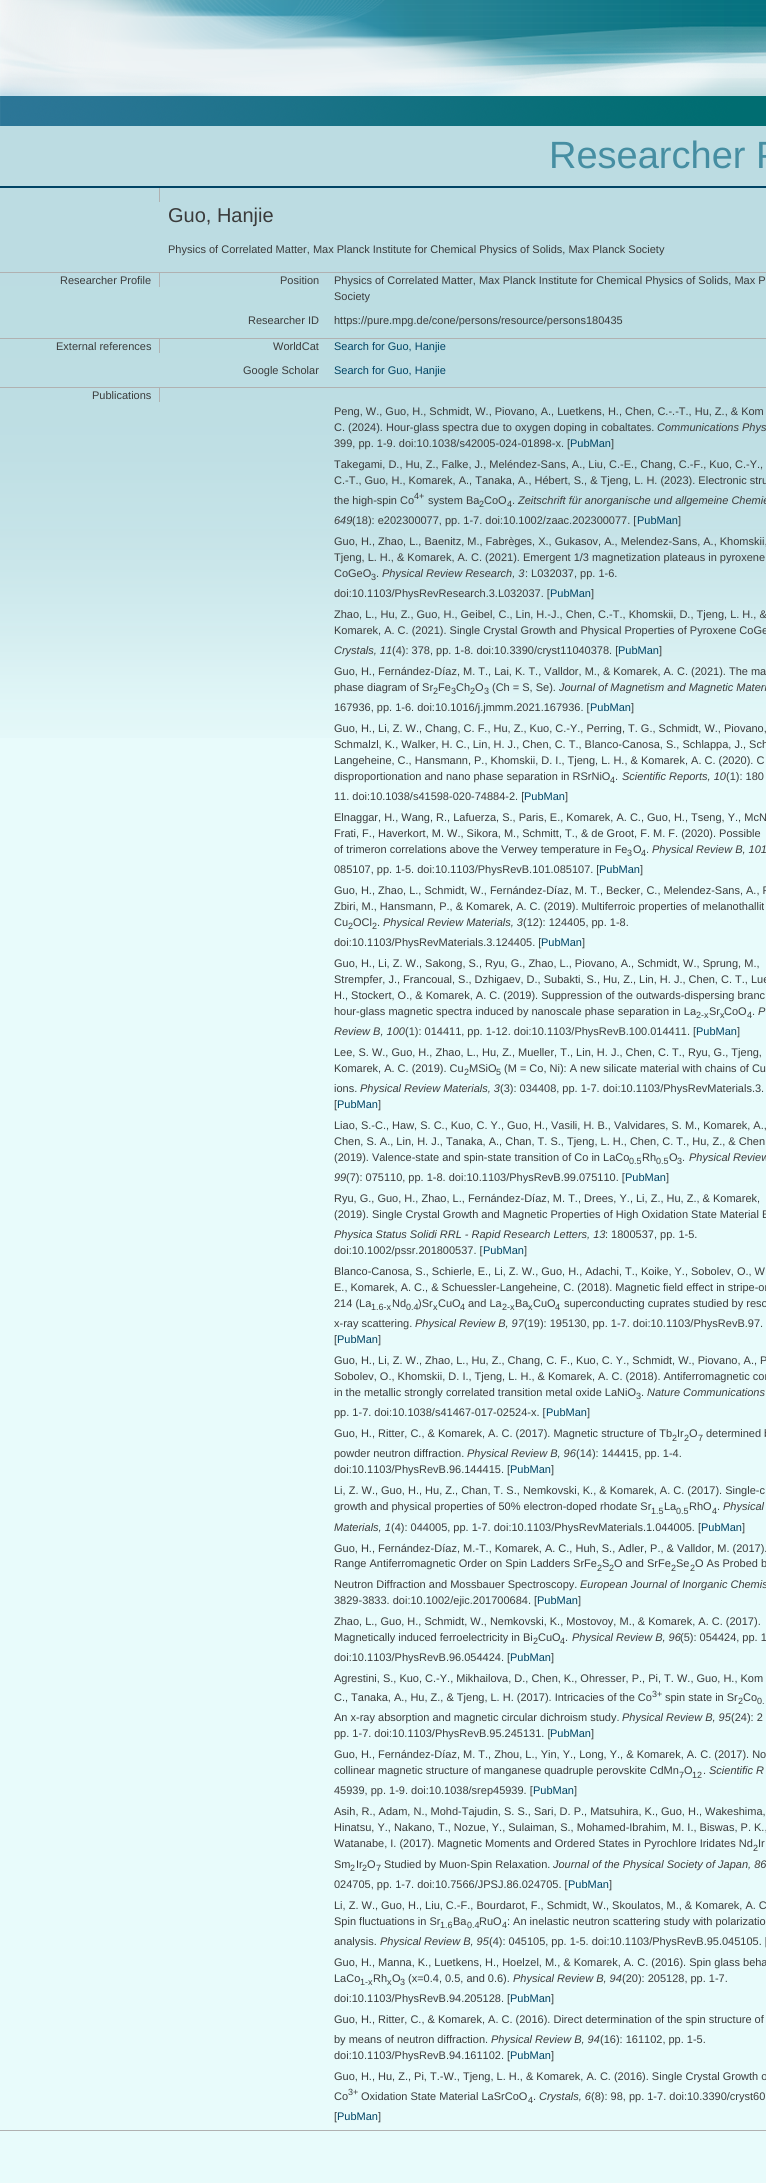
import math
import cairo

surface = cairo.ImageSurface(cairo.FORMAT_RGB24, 766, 2183)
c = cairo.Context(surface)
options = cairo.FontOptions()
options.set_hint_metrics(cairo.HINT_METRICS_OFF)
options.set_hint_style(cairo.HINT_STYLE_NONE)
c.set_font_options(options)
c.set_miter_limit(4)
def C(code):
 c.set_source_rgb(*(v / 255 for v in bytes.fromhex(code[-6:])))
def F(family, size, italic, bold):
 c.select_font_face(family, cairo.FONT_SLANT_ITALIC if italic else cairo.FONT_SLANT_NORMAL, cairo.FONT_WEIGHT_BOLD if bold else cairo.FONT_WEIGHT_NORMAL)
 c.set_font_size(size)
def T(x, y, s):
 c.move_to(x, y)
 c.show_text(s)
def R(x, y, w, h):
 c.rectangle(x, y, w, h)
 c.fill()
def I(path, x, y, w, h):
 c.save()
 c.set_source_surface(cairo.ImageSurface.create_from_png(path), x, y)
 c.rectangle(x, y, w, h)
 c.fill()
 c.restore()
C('e8fbfb')
c.paint()
I('1.png',0,0,766,738)
F('Liberation Sans',38,0,0)
C('468ea2')
T(549,168,'Researcher P')
C('004465')
R(0,186,766,2)
C('b0b1b1')
R(0,2130,766,1)
R(159,188,1,14)
F('Liberation Sans',20,0,0)
C('3a3b3b')
T(168,222,'Guo, Hanjie')
F('Liberation Sans',11,0,0)
T(168,253,'Physics of Correlated Matter, Max Planck Institute for Chemical Physics of Solids, Max Planck Society')
C('b0b1b1')
R(0,272,766,1)
C('3a3b3b')
T(60,284,'Researcher Profile')
C('b0b1b1')
R(159,273,1,14)
C('3a3b3b')
T(280,284,'Position')
T(334,284,'Physics of Correlated Matter, Max Planck Institute for Chemical Physics of Solids, Max P')
T(334,300,'Society')
T(248,324,'Researcher ID')
T(334,324,'https://pure.mpg.de/cone/persons/resource/persons180435')
C('b0b1b1')
R(0,338,766,1)
C('3a3b3b')
T(56,350,'External references')
C('b0b1b1')
R(159,339,1,14)
C('3a3b3b')
T(273,350,'WorldCat')
C('004465')
T(334,350,'Search for Guo, Hanjie')
C('3a3b3b')
T(243,374,'Google Scholar')
C('004465')
T(334,374,'Search for Guo, Hanjie')
C('b0b1b1')
R(0,387,766,1)
C('3a3b3b')
T(92,399,'Publications')
C('b0b1b1')
R(159,388,1,14)
C('3a3b3b')
T(334,415,'Peng, W., Guo, H., Schmidt, W., Piovano, A., Luetkens, H., Chen, C.-.-T., Hu, Z., & Kom')
T(334,431,'C. (2024). Hour-glass spectra due to oxygen doping in cobaltates.')
F('Liberation Sans',11,1,0)
T(657,431,'Communications Phys')
F('Liberation Sans',11,0,0)
T(334,447,'399, pp. 1-9. doi:10.1038/s42005-024-01898-x. [')
C('004465')
T(570,447,'PubMan')
C('3a3b3b')
T(611,447,']')
T(334,468,'Takegami, D., Hu, Z., Falke, J., Meléndez-Sans, A., Liu, C.-E., Chang, C.-F., Kuo, C.-Y.,')
T(334,484,'C.-T., Guo, H., Komarek, A., Tanaka, A., Hébert, S., & Tjeng, L. H. (2023). Electronic stru')
T(334,504,'the high-spin Co')
F('Liberation Sans',9,0,0)
T(414,499,'4+')
F('Liberation Sans',11,0,0)
T(428,504,'system Ba')
F('Liberation Sans',9,0,0)
T(479,507,'2')
F('Liberation Sans',11,0,0)
T(484,504,'CoO')
F('Liberation Sans',9,0,0)
T(507,507,'4')
F('Liberation Sans',11,0,0)
T(512,504,'.')
F('Liberation Sans',11,1,0)
T(518,504,'Zeitschrift für anorganische und allgemeine Chemie')
T(334,524,'649')
F('Liberation Sans',11,0,0)
T(352,524,'(18): e202300077, pp. 1-7. doi:10.1002/zaac.202300077. [')
C('004465')
T(637,524,'PubMan')
C('3a3b3b')
T(678,524,']')
T(334,545,'Guo, H., Zhao, L., Baenitz, M., Fabrèges, X., Gukasov, A., Melendez-Sans, A., Khomskii,')
T(334,561,'Tjeng, L. H., & Komarek, A. C. (2021). Emergent 1/3 magnetization plateaus in pyroxene')
T(334,577,'CoGeO')
F('Liberation Sans',9,0,0)
T(371,580,'3')
F('Liberation Sans',11,0,0)
T(376,577,'.')
F('Liberation Sans',11,1,0)
T(382,577,'Physical Review Research, 3')
F('Liberation Sans',11,0,0)
T(525,577,': L032037, pp. 1-6.')
T(334,597,'doi:10.1103/PhysRevResearch.3.L032037. [')
C('004465')
T(550,597,'PubMan')
C('3a3b3b')
T(591,597,']')
T(334,618,'Zhao, L., Hu, Z., Guo, H., Geibel, C., Lin, H.-J., Chen, C.-T., Khomskii, D., Tjeng, L. H., &')
T(334,634,'Komarek, A. C. (2021). Single Crystal Growth and Physical Properties of Pyroxene CoGe')
F('Liberation Sans',11,1,0)
T(334,654,'Crystals, 11')
F('Liberation Sans',11,0,0)
T(392,654,'(4): 378, pp. 1-8. doi:10.3390/cryst11040378. [')
C('004465')
T(618,654,'PubMan')
C('3a3b3b')
T(659,654,']')
T(334,675,'Guo, H., Fernández-Díaz, M. T., Lai, K. T., Valldor, M., & Komarek, A. C. (2021). The ma')
T(334,691,'phase diagram of Sr')
F('Liberation Sans',9,0,0)
T(433,694,'2')
F('Liberation Sans',11,0,0)
T(438,691,'Fe')
F('Liberation Sans',9,0,0)
T(451,694,'3')
F('Liberation Sans',11,0,0)
T(456,691,'Ch')
F('Liberation Sans',9,0,0)
T(470,694,'2')
F('Liberation Sans',11,0,0)
T(475,691,'O')
F('Liberation Sans',9,0,0)
T(484,694,'3')
F('Liberation Sans',11,0,0)
T(492,691,'(Ch = S, Se).')
F('Liberation Sans',11,1,0)
T(559,691,'Journal of Magnetism and Magnetic Materi')
F('Liberation Sans',11,0,0)
T(334,711,'167936, pp. 1-6. doi:10.1016/j.jmmm.2021.167936. [')
C('004465')
T(590,711,'PubMan')
C('3a3b3b')
T(631,711,']')
T(334,732,'Guo, H., Li, Z. W., Chang, C. F., Hu, Z., Kuo, C.-Y., Perring, T. G., Schmidt, W., Piovano,')
T(334,748,'Schmalzl, K., Walker, H. C., Lin, H. J., Chen, C. T., Blanco-Canosa, S., Schlappa, J., Sch')
T(334,764,'Langeheine, C., Hansmann, P., Khomskii, D. I., Tjeng, L. H., & Komarek, A. C. (2020). C')
T(334,780,'disproportionation and nano phase separation in RSrNiO')
F('Liberation Sans',9,0,0)
T(610,783,'4')
F('Liberation Sans',11,0,0)
T(615,780,'.')
F('Liberation Sans',11,1,0)
T(622,780,'Scientific Reports, 10')
F('Liberation Sans',11,0,0)
T(726,780,'(1): 180')
T(334,800,'11. doi:10.1038/s41598-020-74884-2. [')
C('004465')
T(524,800,'PubMan')
C('3a3b3b')
T(565,800,']')
T(334,821,'Elnaggar, H., Wang, R., Lafuerza, S., Paris, E., Komarek, A. C., Guo, H., Tseng, Y., McN')
T(334,837,'Frati, F., Haverkort, M. W., Sikora, M., Schmitt, T., & de Groot, F. M. F. (2020). Possible')
T(334,853,'of trimeron correlations above the Verwey temperature in Fe')
F('Liberation Sans',9,0,0)
T(627,856,'3')
F('Liberation Sans',11,0,0)
T(633,853,'O')
F('Liberation Sans',9,0,0)
T(641,856,'4')
F('Liberation Sans',11,0,0)
T(646,853,'.')
F('Liberation Sans',11,1,0)
T(652,853,'Physical Review B, 101')
F('Liberation Sans',11,0,0)
T(334,873,'085107, pp. 1-5. doi:10.1103/PhysRevB.101.085107. [')
C('004465')
T(599,873,'PubMan')
C('3a3b3b')
T(640,873,']')
T(334,894,'Guo, H., Zhao, L., Schmidt, W., Fernández-Díaz, M. T., Becker, C., Melendez-Sans, A., P')
T(334,910,'Zbiri, M., Hansmann, P., & Komarek, A. C. (2019). Multiferroic properties of melanothallit')
T(334,926,'Cu')
F('Liberation Sans',9,0,0)
T(348,929,'2')
F('Liberation Sans',11,0,0)
T(353,926,'OCl')
F('Liberation Sans',9,0,0)
T(372,929,'2')
F('Liberation Sans',11,0,0)
T(377,926,'.')
F('Liberation Sans',11,1,0)
T(383,926,'Physical Review Materials, 3')
F('Liberation Sans',11,0,0)
T(523,926,'(12): 124405, pp. 1-8.')
T(334,946,'doi:10.1103/PhysRevMaterials.3.124405. [')
C('004465')
T(541,946,'PubMan')
C('3a3b3b')
T(582,946,']')
T(334,967,'Guo, H., Li, Z. W., Sakong, S., Ryu, G., Zhao, L., Piovano, A., Schmidt, W., Sprung, M.,')
T(334,983,'Strempfer, J., Francoual, S., Dzhigaev, D., Subakti, S., Hu, Z., Lin, H. J., Chen, C. T., Lue')
T(334,999,'H., Stockert, O., & Komarek, A. C. (2019). Suppression of the outwards-dispersing branc')
T(334,1015,'hour-glass magnetic spectra induced by nanoscale phase separation in La')
F('Liberation Sans',9,0,0)
T(696,1018,'2-x')
F('Liberation Sans',11,0,0)
T(709,1015,'Sr')
F('Liberation Sans',9,0,0)
T(720,1018,'x')
F('Liberation Sans',11,0,0)
T(724,1015,'CoO')
F('Liberation Sans',9,0,0)
T(747,1018,'4')
F('Liberation Sans',11,0,0)
T(752,1015,'.')
F('Liberation Sans',11,1,0)
T(758,1015,'P')
T(334,1035,'Review B, 100')
F('Liberation Sans',11,0,0)
T(405,1035,'(1): 014411, pp. 1-12. doi:10.1103/PhysRevB.100.014411. [')
C('004465')
T(696,1035,'PubMan')
C('3a3b3b')
T(737,1035,']')
T(334,1056,'Lee, S. W., Guo, H., Zhao, L., Hu, Z., Mueller, T., Lin, H. J., Chen, C. T., Ryu, G., Tjeng,')
T(334,1072,'Komarek, A. C. (2019). Cu')
F('Liberation Sans',9,0,0)
T(464,1075,'2')
F('Liberation Sans',11,0,0)
T(469,1072,'MSiO')
F('Liberation Sans',9,0,0)
T(496,1075,'5')
F('Liberation Sans',11,0,0)
T(504,1072,'(M = Co, Ni): A new silicate material with chains of Cu')
T(334,1092,'ions.')
F('Liberation Sans',11,1,0)
T(360,1092,'Physical Review Materials, 3')
F('Liberation Sans',11,0,0)
T(500,1092,'(3): 034408, pp. 1-7. doi:10.1103/PhysRevMaterials.3.')
T(334,1108,'[')
C('004465')
T(337,1108,'PubMan')
C('3a3b3b')
T(378,1108,']')
T(334,1129,'Liao, S.-C., Haw, S. C., Kuo, C. Y., Guo, H., Vasili, H. B., Valvidares, S. M., Komarek, A.,')
T(334,1145,'Chen, S. A., Lin, H. J., Tanaka, A., Chan, T. S., Tjeng, L. H., Chen, C. T., Hu, Z., & Chen')
T(334,1161,'(2019). Valence-state and spin-state transition of Co in LaCo')
F('Liberation Sans',9,0,0)
T(629,1164,'0.5')
F('Liberation Sans',11,0,0)
T(642,1161,'Rh')
F('Liberation Sans',9,0,0)
T(656,1164,'0.5')
F('Liberation Sans',11,0,0)
T(669,1161,'O')
F('Liberation Sans',9,0,0)
T(677,1164,'3')
F('Liberation Sans',11,0,0)
T(682,1161,'.')
F('Liberation Sans',11,1,0)
T(689,1161,'Physical Review')
T(334,1181,'99')
F('Liberation Sans',11,0,0)
T(346,1181,'(7): 075110, pp. 1-8. doi:10.1103/PhysRevB.99.075110. [')
C('004465')
T(625,1181,'PubMan')
C('3a3b3b')
T(666,1181,']')
T(334,1202,'Ryu, G., Guo, H., Zhao, L., Fernández-Díaz, M. T., Drees, Y., Li, Z., Hu, Z., & Komarek,')
T(334,1218,'(2019). Single Crystal Growth and Magnetic Properties of High Oxidation State Material B')
F('Liberation Sans',11,1,0)
T(334,1238,'Physica Status Solidi RRL - Rapid Research Letters, 13')
F('Liberation Sans',11,0,0)
T(605,1238,': 1800537, pp. 1-5.')
T(334,1254,'doi:10.1002/pssr.201800537. [')
C('004465')
T(483,1254,'PubMan')
C('3a3b3b')
T(524,1254,']')
T(334,1275,'Blanco-Canosa, S., Schierle, E., Li, Z. W., Guo, H., Adachi, T., Koike, Y., Sobolev, O., W')
T(334,1291,'E., Komarek, A. C., & Schuessler-Langeheine, C. (2018). Magnetic field effect in stripe-or')
T(334,1307,'214 (La')
F('Liberation Sans',9,0,0)
T(371,1310,'1.6-x')
F('Liberation Sans',11,0,0)
T(392,1307,'Nd')
F('Liberation Sans',9,0,0)
T(406,1310,'0.4')
F('Liberation Sans',11,0,0)
T(418,1307,')Sr')
F('Liberation Sans',9,0,0)
T(433,1310,'x')
F('Liberation Sans',11,0,0)
T(438,1307,'CuO')
F('Liberation Sans',9,0,0)
T(460,1310,'4')
F('Liberation Sans',11,0,0)
T(468,1307,'and La')
F('Liberation Sans',9,0,0)
T(502,1310,'2-x')
F('Liberation Sans',11,0,0)
T(515,1307,'Ba')
F('Liberation Sans',9,0,0)
T(528,1310,'x')
F('Liberation Sans',11,0,0)
T(533,1307,'CuO')
F('Liberation Sans',9,0,0)
T(555,1310,'4')
F('Liberation Sans',11,0,0)
T(564,1307,'superconducting cuprates studied by reso')
T(334,1327,'x-ray scattering.')
F('Liberation Sans',11,1,0)
T(415,1327,'Physical Review B, 97')
F('Liberation Sans',11,0,0)
T(524,1327,'(19): 195130, pp. 1-7. doi:10.1103/PhysRevB.97.')
T(334,1343,'[')
C('004465')
T(337,1343,'PubMan')
C('3a3b3b')
T(378,1343,']')
T(334,1364,'Guo, H., Li, Z. W., Zhao, L., Hu, Z., Chang, C. F., Kuo, C. Y., Schmidt, W., Piovano, A., P')
T(334,1380,'Sobolev, O., Khomskii, D. I., Tjeng, L. H., & Komarek, A. C. (2018). Antiferromagnetic cor')
T(334,1396,'in the metallic strongly correlated transition metal oxide LaNiO')
F('Liberation Sans',9,0,0)
T(636,1399,'3')
F('Liberation Sans',11,0,0)
T(641,1396,'.')
F('Liberation Sans',11,1,0)
T(647,1396,'Nature Communications')
F('Liberation Sans',11,0,0)
T(334,1416,'pp. 1-7. doi:10.1038/s41467-017-02524-x. [')
C('004465')
T(546,1416,'PubMan')
C('3a3b3b')
T(587,1416,']')
T(334,1437,'Guo, H., Ritter, C., & Komarek, A. C. (2017). Magnetic structure of Tb')
F('Liberation Sans',9,0,0)
T(672,1441,'2')
F('Liberation Sans',11,0,0)
T(677,1437,'Ir')
F('Liberation Sans',9,0,0)
T(684,1441,'2')
F('Liberation Sans',11,0,0)
T(689,1437,'O')
F('Liberation Sans',9,0,0)
T(698,1441,'7')
F('Liberation Sans',11,0,0)
T(706,1437,'determined b')
T(334,1457,'powder neutron diffraction.')
F('Liberation Sans',11,1,0)
T(467,1457,'Physical Review B, 96')
F('Liberation Sans',11,0,0)
T(576,1457,'(14): 144415, pp. 1-4.')
T(334,1473,'doi:10.1103/PhysRevB.96.144415. [')
C('004465')
T(510,1473,'PubMan')
C('3a3b3b')
T(551,1473,']')
T(334,1494,'Li, Z. W., Guo, H., Hu, Z., Chan, T. S., Nemkovski, K., & Komarek, A. C. (2017). Single-c')
T(334,1510,'growth and physical properties of 50% electron-doped rhodate Sr')
F('Liberation Sans',9,0,0)
T(651,1514,'1.5')
F('Liberation Sans',11,0,0)
T(664,1510,'La')
F('Liberation Sans',9,0,0)
T(676,1514,'0.5')
F('Liberation Sans',11,0,0)
T(689,1510,'RhO')
F('Liberation Sans',9,0,0)
T(712,1514,'4')
F('Liberation Sans',11,0,0)
T(717,1510,'.')
F('Liberation Sans',11,1,0)
T(723,1510,'Physical')
T(334,1531,'Materials, 1')
F('Liberation Sans',11,0,0)
T(391,1531,'(4): 044005, pp. 1-7. doi:10.1103/PhysRevMaterials.1.044005. [')
C('004465')
T(701,1531,'PubMan')
C('3a3b3b')
T(742,1531,']')
T(334,1552,'Guo, H., Fernández-Díaz, M.-T., Komarek, A. C., Huh, S., Adler, P., & Valldor, M. (2017).')
T(334,1567,'Range Antiferromagnetic Order on Spin Ladders SrFe')
F('Liberation Sans',9,0,0)
T(597,1571,'2')
F('Liberation Sans',11,0,0)
T(602,1567,'S')
F('Liberation Sans',9,0,0)
T(609,1571,'2')
F('Liberation Sans',11,0,0)
T(614,1567,'O and SrFe')
F('Liberation Sans',9,0,0)
T(671,1571,'2')
F('Liberation Sans',11,0,0)
T(676,1567,'Se')
F('Liberation Sans',9,0,0)
T(690,1571,'2')
F('Liberation Sans',11,0,0)
T(695,1567,'O As Probed b')
T(334,1588,'Neutron Diffraction and Mossbauer Spectroscopy.')
F('Liberation Sans',11,1,0)
T(580,1588,'European Journal of Inorganic Chemis')
F('Liberation Sans',11,0,0)
T(334,1604,'3829-3833. doi:10.1002/ejic.201700684. [')
C('004465')
T(537,1604,'PubMan')
C('3a3b3b')
T(578,1604,']')
T(334,1625,'Zhao, L., Guo, H., Schmidt, W., Nemkovski, K., Mostovoy, M., & Komarek, A. C. (2017).')
T(334,1641,'Magnetically induced ferroelectricity in Bi')
F('Liberation Sans',9,0,0)
T(533,1644,'2')
F('Liberation Sans',11,0,0)
T(538,1641,'CuO')
F('Liberation Sans',9,0,0)
T(560,1644,'4')
F('Liberation Sans',11,0,0)
T(565,1641,'.')
F('Liberation Sans',11,1,0)
T(572,1641,'Physical Review B, 96')
F('Liberation Sans',11,0,0)
T(680,1641,'(5): 054424, pp. 1')
T(334,1661,'doi:10.1103/PhysRevB.96.054424. [')
C('004465')
T(510,1661,'PubMan')
C('3a3b3b')
T(551,1661,']')
T(334,1682,'Agrestini, S., Kuo, C.-Y., Mikhailova, D., Chen, K., Ohresser, P., Pi, T. W., Guo, H., Kom')
T(334,1701,'C., Tanaka, A., Hu, Z., & Tjeng, L. H. (2017). Intricacies of the Co')
F('Liberation Sans',9,0,0)
T(652,1697,'3+')
F('Liberation Sans',11,0,0)
T(665,1701,'spin state in Sr')
F('Liberation Sans',9,0,0)
T(738,1704,'2')
F('Liberation Sans',11,0,0)
T(743,1701,'Co')
F('Liberation Sans',9,0,0)
T(757,1704,'0.')
F('Liberation Sans',11,0,0)
T(334,1721,'An x-ray absorption and magnetic circular dichroism study.')
F('Liberation Sans',11,1,0)
T(622,1721,'Physical Review B, 95')
F('Liberation Sans',11,0,0)
T(731,1721,'(24): 2')
T(334,1737,'pp. 1-7. doi:10.1103/PhysRevB.95.245131. [')
C('004465')
T(550,1737,'PubMan')
C('3a3b3b')
T(591,1737,']')
T(334,1758,'Guo, H., Fernández-Díaz, M. T., Zhou, L., Yin, Y., Long, Y., & Komarek, A. C. (2017). No')
T(334,1774,'collinear magnetic structure of manganese quadruple perovskite CdMn')
F('Liberation Sans',9,0,0)
T(679,1778,'7')
F('Liberation Sans',11,0,0)
T(684,1774,'O')
F('Liberation Sans',9,0,0)
T(692,1778,'12')
F('Liberation Sans',11,0,0)
T(703,1774,'.')
F('Liberation Sans',11,1,0)
T(709,1774,'Scientific R')
F('Liberation Sans',11,0,0)
T(334,1794,'45939, pp. 1-9. doi:10.1038/srep45939. [')
C('004465')
T(533,1794,'PubMan')
C('3a3b3b')
T(574,1794,']')
T(334,1815,'Asih, R., Adam, N., Mohd-Tajudin, S. S., Sari, D. P., Matsuhira, K., Guo, H., Wakeshima,')
T(334,1831,'Hinatsu, Y., Nakano, T., Nozue, Y., Sulaiman, S., Mohamed-Ibrahim, M. I., Biswas, P. K.,')
T(334,1847,'Watanabe, I. (2017). Magnetic Moments and Ordered States in Pyrochlore Iridates Nd')
F('Liberation Sans',9,0,0)
T(753,1851,'2')
F('Liberation Sans',11,0,0)
T(758,1847,'Ir')
T(334,1868,'Sm')
F('Liberation Sans',9,0,0)
T(350,1871,'2')
F('Liberation Sans',11,0,0)
T(356,1868,'Ir')
F('Liberation Sans',9,0,0)
T(362,1871,'2')
F('Liberation Sans',11,0,0)
T(367,1868,'O')
F('Liberation Sans',9,0,0)
T(376,1871,'7')
F('Liberation Sans',11,0,0)
T(384,1868,'Studied by Muon-Spin Relaxation.')
F('Liberation Sans',11,1,0)
T(553,1868,'Journal of the Physical Society of Japan, 86')
F('Liberation Sans',11,0,0)
T(334,1888,'024705, pp. 1-7. doi:10.7566/JPSJ.86.024705. [')
C('004465')
T(568,1888,'PubMan')
C('3a3b3b')
T(609,1888,']')
T(334,1909,'Li, Z. W., Guo, H., Liu, C.-F., Bourdarot, F., Schmidt, W., Skoulatos, M., & Komarek, A. C')
T(334,1925,'Spin fluctuations in Sr')
F('Liberation Sans',9,0,0)
T(440,1928,'1.6')
F('Liberation Sans',11,0,0)
T(453,1925,'Ba')
F('Liberation Sans',9,0,0)
T(467,1928,'0.4')
F('Liberation Sans',11,0,0)
T(479,1925,'RuO')
F('Liberation Sans',9,0,0)
T(502,1928,'4')
F('Liberation Sans',11,0,0)
T(507,1925,': An inelastic neutron scattering study with polarizatio')
T(334,1945,'analysis.')
F('Liberation Sans',11,1,0)
T(380,1945,'Physical Review B, 95')
F('Liberation Sans',11,0,0)
T(489,1945,'(4): 045105, pp. 1-5. doi:10.1103/PhysRevB.95.045105. [')
T(334,1966,'Guo, H., Manna, K., Luetkens, H., Hoelzel, M., & Komarek, A. C. (2016). Spin glass beha')
T(334,1982,'LaCo')
F('Liberation Sans',9,0,0)
T(360,1985,'1-x')
F('Liberation Sans',11,0,0)
T(373,1982,'Rh')
F('Liberation Sans',9,0,0)
T(387,1985,'x')
F('Liberation Sans',11,0,0)
T(392,1982,'O')
F('Liberation Sans',9,0,0)
T(400,1985,'3')
F('Liberation Sans',11,0,0)
T(408,1982,'(x=0.4, 0.5, and 0.6).')
F('Liberation Sans',11,1,0)
T(513,1982,'Physical Review B, 94')
F('Liberation Sans',11,0,0)
T(622,1982,'(20): 205128, pp. 1-7.')
T(334,2002,'doi:10.1103/PhysRevB.94.205128. [')
C('004465')
T(510,2002,'PubMan')
C('3a3b3b')
T(551,2002,']')
T(334,2023,'Guo, H., Ritter, C., & Komarek, A. C. (2016). Direct determination of the spin structure of')
T(334,2043,'by means of neutron diffraction.')
F('Liberation Sans',11,1,0)
T(491,2043,'Physical Review B, 94')
F('Liberation Sans',11,0,0)
T(600,2043,'(16): 161102, pp. 1-5.')
T(334,2059,'doi:10.1103/PhysRevB.94.161102. [')
C('004465')
T(510,2059,'PubMan')
C('3a3b3b')
T(551,2059,']')
T(334,2080,'Guo, H., Hu, Z., Pi, T.-W., Tjeng, L. H., & Komarek, A. C. (2016). Single Crystal Growth o')
T(334,2100,'Co')
F('Liberation Sans',9,0,0)
T(348,2095,'3+')
F('Liberation Sans',11,0,0)
T(361,2100,'Oxidation State Material LaSrCoO')
F('Liberation Sans',9,0,0)
T(528,2103,'4')
F('Liberation Sans',11,0,0)
T(533,2100,'.')
F('Liberation Sans',11,1,0)
T(539,2100,'Crystals, 6')
F('Liberation Sans',11,0,0)
T(591,2100,'(8): 98, pp. 1-7. doi:10.3390/cryst60')
T(334,2120,'[')
C('004465')
T(337,2120,'PubMan')
C('3a3b3b')
T(378,2120,']')
surface.write_to_png('o.png')
